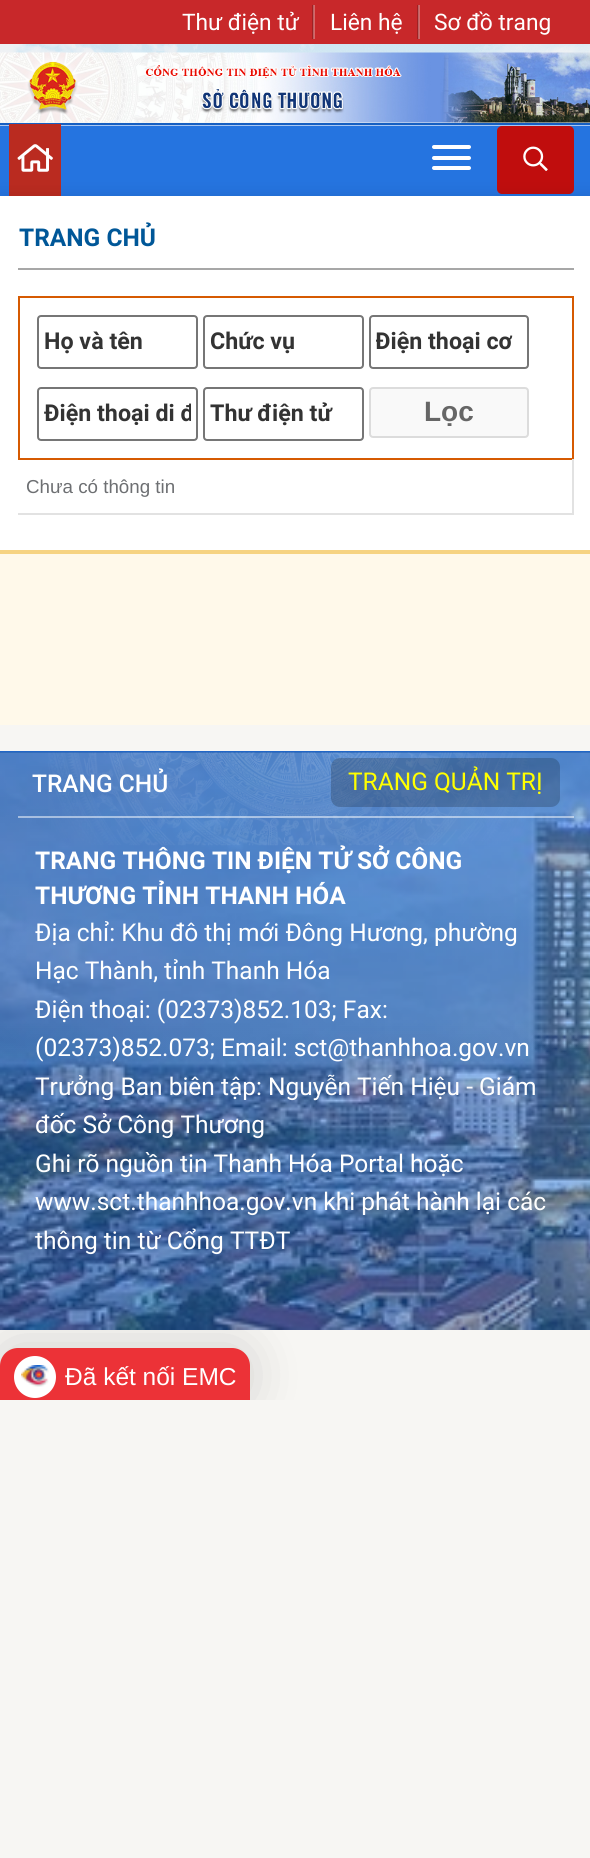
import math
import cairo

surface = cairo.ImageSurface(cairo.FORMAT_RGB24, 590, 1858)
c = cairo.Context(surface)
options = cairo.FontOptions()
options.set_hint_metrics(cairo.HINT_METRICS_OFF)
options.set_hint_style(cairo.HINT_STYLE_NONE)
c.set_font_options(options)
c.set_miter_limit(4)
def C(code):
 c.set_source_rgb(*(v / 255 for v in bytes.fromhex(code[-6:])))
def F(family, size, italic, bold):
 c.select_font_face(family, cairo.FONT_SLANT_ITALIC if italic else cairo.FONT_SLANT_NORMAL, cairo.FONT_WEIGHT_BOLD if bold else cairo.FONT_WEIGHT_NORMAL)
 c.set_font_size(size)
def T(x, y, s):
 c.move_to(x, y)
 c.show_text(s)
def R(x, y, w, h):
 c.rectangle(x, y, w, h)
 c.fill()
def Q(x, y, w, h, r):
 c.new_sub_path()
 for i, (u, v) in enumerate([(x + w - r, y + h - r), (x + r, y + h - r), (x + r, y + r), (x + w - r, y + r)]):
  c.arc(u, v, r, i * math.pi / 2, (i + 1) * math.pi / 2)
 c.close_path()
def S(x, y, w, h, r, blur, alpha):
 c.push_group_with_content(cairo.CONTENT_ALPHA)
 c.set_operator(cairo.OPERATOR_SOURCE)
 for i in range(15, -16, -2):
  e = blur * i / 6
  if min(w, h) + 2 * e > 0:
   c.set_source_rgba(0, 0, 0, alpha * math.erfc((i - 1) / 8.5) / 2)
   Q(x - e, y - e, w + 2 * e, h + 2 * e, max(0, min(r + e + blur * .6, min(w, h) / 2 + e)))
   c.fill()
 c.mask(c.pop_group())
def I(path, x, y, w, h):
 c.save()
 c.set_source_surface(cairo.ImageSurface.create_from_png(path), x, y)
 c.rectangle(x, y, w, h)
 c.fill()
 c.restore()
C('f7f6f3')
c.paint()
I('1.png',0,44,590,79)
C('c8282a')
R(0,0,590,44)
C('a02022')
R(312,5,2,34)
F('Roboto',22.75,0,0)
C('ffffff')
T(182,30,'Thư điện tử')
C('a02022')
R(417,5,2,34)
c.set_source_rgba(1,1,1,0.3)
R(313,5,2,34)
C('ffffff')
T(330,30,'Liên hệ')
c.set_source_rgba(1,1,1,0.3)
R(418,5,2,34)
C('ffffff')
T(434,30,'Sơ đồ trang')
I('2.png',0,52,590,71)
C('2574e0')
R(0,126,590,70)
C('a8c7f3')
R(0,125,590,1)
C('165fc2')
R(0,123,590,2)
C('ba2b20')
R(9,124,52,72)
I('3.png',17,144,36,28)
C('ffffff')
Q(432,145,39,4,2)
c.fill()
Q(432,156,39,4,2)
c.fill()
Q(432,166,39,4,2)
c.fill()
C('c00d0d')
Q(497,126,77,68,5)
c.fill()
I('4.png',523,146,25,25)
C('000000')
S(0,196,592,354,0,9,.1)
C('ffffff')
R(0,196,590,354)
C('a7a7a7')
R(18,268,556,2)
F('Roboto',24.5,0,1)
C('005798')
T(19,246,'TRANG CHỦ')
c.rectangle(19,297,554,162)
C('d65a01')
c.stroke()
Q(38,316,159,52,3)
C('767676')
c.stroke()
F('Roboto',23.25,0,1)
C('333333')
T(44,349,'Họ và tên')
Q(204,316,159,52,3)
C('767676')
c.stroke()
C('333333')
T(210,349,'Chức vụ')
Q(370,316,158,52,3)
C('767676')
c.stroke()
c.save()
c.rectangle(376,320,146,44)
c.clip()
C('333333')
T(375,349,'Điện thoại cơ')
c.restore()
Q(38,388,159,52,3)
c.stroke()
c.save()
c.rectangle(44,392,147,44)
c.clip()
C('333333')
T(44,421,'Điện thoại di đ')
c.restore()
Q(204,388,159,52,3)
c.stroke()
C('333333')
T(210,421,'Thư điện tử')
C('f9f9f9')
Q(370,388,158,49,3)
c.fill_preserve()
C('dcdcdc')
c.stroke()
F('Liberation Sans',28,0,1)
C('666666')
T(424,421,'Lọc')
C('e2e2e2')
R(572,459,2,56)
R(18,513,556,2)
F('Liberation Sans',18.75,0,0)
C('6d6f72')
T(26,493,'Chưa có thông tin')
C('fff9ea')
R(0,554,590,171)
C('f6d382')
R(0,550,590,4)
C('2574e0')
R(0,751,590,2)
c.save()
c.rectangle(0,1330,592,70)
c.clip()
C('000000')
S(0,1346,250,59,18,26,.15)
c.restore()
I('5.png',0,752,590,578)
c.set_source_rgba(0,0,0,0.12)
R(0,751,590,2)
I('6.png',48,752,481,94)
c.set_source_rgba(1,1,1,0.5)
R(18,816,556,2)
F('Roboto Medium',24.5,0,0)
C('ffffff')
T(32,792,'TRANG CHỦ')
c.set_source_rgba(0,0,0,0.2)
Q(331,758,229,49,9)
c.fill()
F('Roboto',24.5,0,0)
C('ffff00')
T(348,790,'TRANG QUẢN TRỊ')
F('Roboto',24.5,0,1)
C('ffffff')
T(35,869,'TRANG THÔNG TIN ĐIỆN TỬ SỞ CÔNG')
T(35,904,'THƯƠNG TỈNH THANH HÓA')
F('Roboto',24.5,0,0)
T(35,941,'Địa chỉ: Khu đô thị mới Đông Hương, phường')
T(35,979,'Hạc Thành, tỉnh Thanh Hóa')
T(35,1018,'Điện thoại: (02373)852.103; Fax:')
T(35,1056,'(02373)852.073; Email: sct@thanhhoa.gov.vn')
T(35,1095,'Trưởng Ban biên tập: Nguyễn Tiến Hiệu - Giám')
T(35,1133,'đốc Sở Công Thương')
T(35,1172,'Ghi rõ nguồn tin Thanh Hóa Portal hoặc')
T(35,1210,'www.sct.thanhhoa.gov.vn khi phát hành lại các')
T(35,1249,'thông tin từ Cổng TTĐT')
C('ec3237')
c.new_path()
c.move_to(18,1348)
c.line_to(232,1348)
c.curve_to(242,1348,250,1356,250,1366)
c.line_to(250,1400)
c.line_to(0,1400)
c.line_to(0,1366)
c.curve_to(0,1356,8,1348,18,1348)
c.close_path()
c.fill()
C('ffffff')
c.arc(35,1377,21,0,2 * math.pi)
c.fill()
I('7.png',21,1365,28,22)
F('Liberation Sans',24.5,0,0)
T(65,1385,'Đã kết nối EMC')
surface.write_to_png('o.png')
